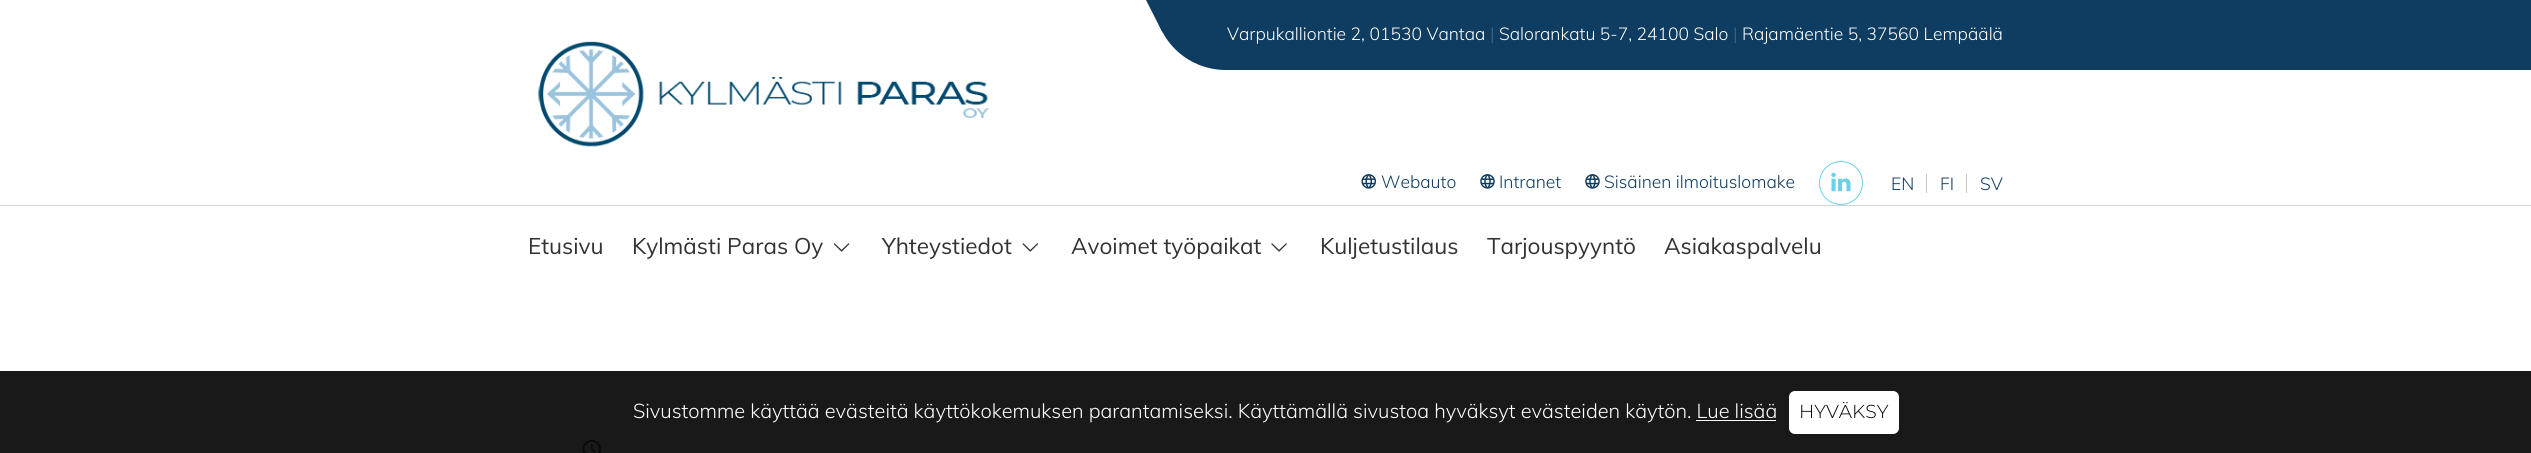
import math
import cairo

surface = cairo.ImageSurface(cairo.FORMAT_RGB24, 2531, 453)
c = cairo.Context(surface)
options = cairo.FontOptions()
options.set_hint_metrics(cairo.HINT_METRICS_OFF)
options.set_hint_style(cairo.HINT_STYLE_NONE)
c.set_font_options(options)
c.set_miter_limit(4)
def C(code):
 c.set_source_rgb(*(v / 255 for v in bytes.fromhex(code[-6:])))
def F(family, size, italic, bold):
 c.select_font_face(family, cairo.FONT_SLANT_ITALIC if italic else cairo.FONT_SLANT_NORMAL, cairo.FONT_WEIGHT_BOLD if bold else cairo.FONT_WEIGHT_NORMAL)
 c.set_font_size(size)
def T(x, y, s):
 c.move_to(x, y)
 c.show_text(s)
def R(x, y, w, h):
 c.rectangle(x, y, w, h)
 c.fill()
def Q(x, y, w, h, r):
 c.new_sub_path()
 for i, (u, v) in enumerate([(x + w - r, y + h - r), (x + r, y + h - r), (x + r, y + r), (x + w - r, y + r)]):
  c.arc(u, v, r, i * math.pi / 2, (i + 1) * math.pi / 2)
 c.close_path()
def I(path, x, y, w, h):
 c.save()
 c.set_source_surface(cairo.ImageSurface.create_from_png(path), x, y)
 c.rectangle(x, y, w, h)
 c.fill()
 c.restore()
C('ffffff')
c.paint()
I('1.png',538,41,451,106)
C('0f3c61')
R(1226,0,1305,70)
c.new_path()
c.move_to(1154,0)
c.line_to(1226,0)
c.line_to(1226,70)
c.curve_to(1186,70,1154,38,1154,-2)
c.close_path()
c.fill()
c.new_path()
c.move_to(1146,0)
c.line_to(1162.5,0)
c.line_to(1162.5,32.5)
c.close_path()
c.fill()
F('Muli Light',17.5,0,0)
C('ffffff')
T(1227,40,'Varpukalliontie 2, 01530 Vantaa')
C('476986')
T(1490,40,'|')
C('ffffff')
T(1499,40,'Salorankatu 5-7, 24100 Salo')
C('476986')
T(1733,40,'|')
C('ffffff')
T(1742,40,'Rajamäentie 5, 37560 Lempäälä')
I('2.png',1361,174,15,15)
C('0f3c61')
T(1381,188,'Webauto')
I('3.png',1480,174,15,15)
T(1499,188,'Intranet')
I('3.png',1585,174,15,15)
T(1604,188,'Sisäinen ilmoituslomake')
c.new_path()
c.arc(1841,183,21.5,0,2 * math.pi)
C('6cd0ea')
c.set_line_width(1)
c.stroke()
I('4.png',1831,172,20,20)
C('c6c6c6')
R(1926,174,1,19)
C('0f3c61')
T(1891,190,'EN')
C('c6c6c6')
R(1966,174,1,19)
C('0f3c61')
T(1940,190,'FI')
T(1980,190,'SV')
C('d4d4d4')
R(0,205,2531,1)
F('Muli',22.5,0,0)
C('323232')
T(528,254,'Etusivu')
T(632,254,'Kylmästi Paras Oy')
I('5.png',833,243,17,9)
T(882,254,'Yhteystiedot')
I('6.png',1022,243,16,9)
T(1071,254,'Avoimet työpaikat')
I('7.png',1271,243,16,9)
T(1320,254,'Kuljetustilaus')
T(1487,254,'Tarjouspyyntö')
T(1664,254,'Asiakaspalvelu')
I('8.png',582,439,20,14)
c.set_source_rgba(0,0,0,0.9)
R(0,371,2531,82)
F('Muli Light',20,0,0)
C('ffffff')
T(633,418,'Sivustomme käyttää evästeitä käyttökokemuksen parantamiseksi. Käyttämällä sivustoa hyväksyt evästeiden käytön. Lue lisää')
Q(1789,391,110,43,6)
c.fill()
F('Montserrat Light',18.75,0,0)
C('000000')
T(1799,418,'HYVÄKSY')
C('ffffff')
R(1696,420,80,1)
surface.write_to_png('o.png')
